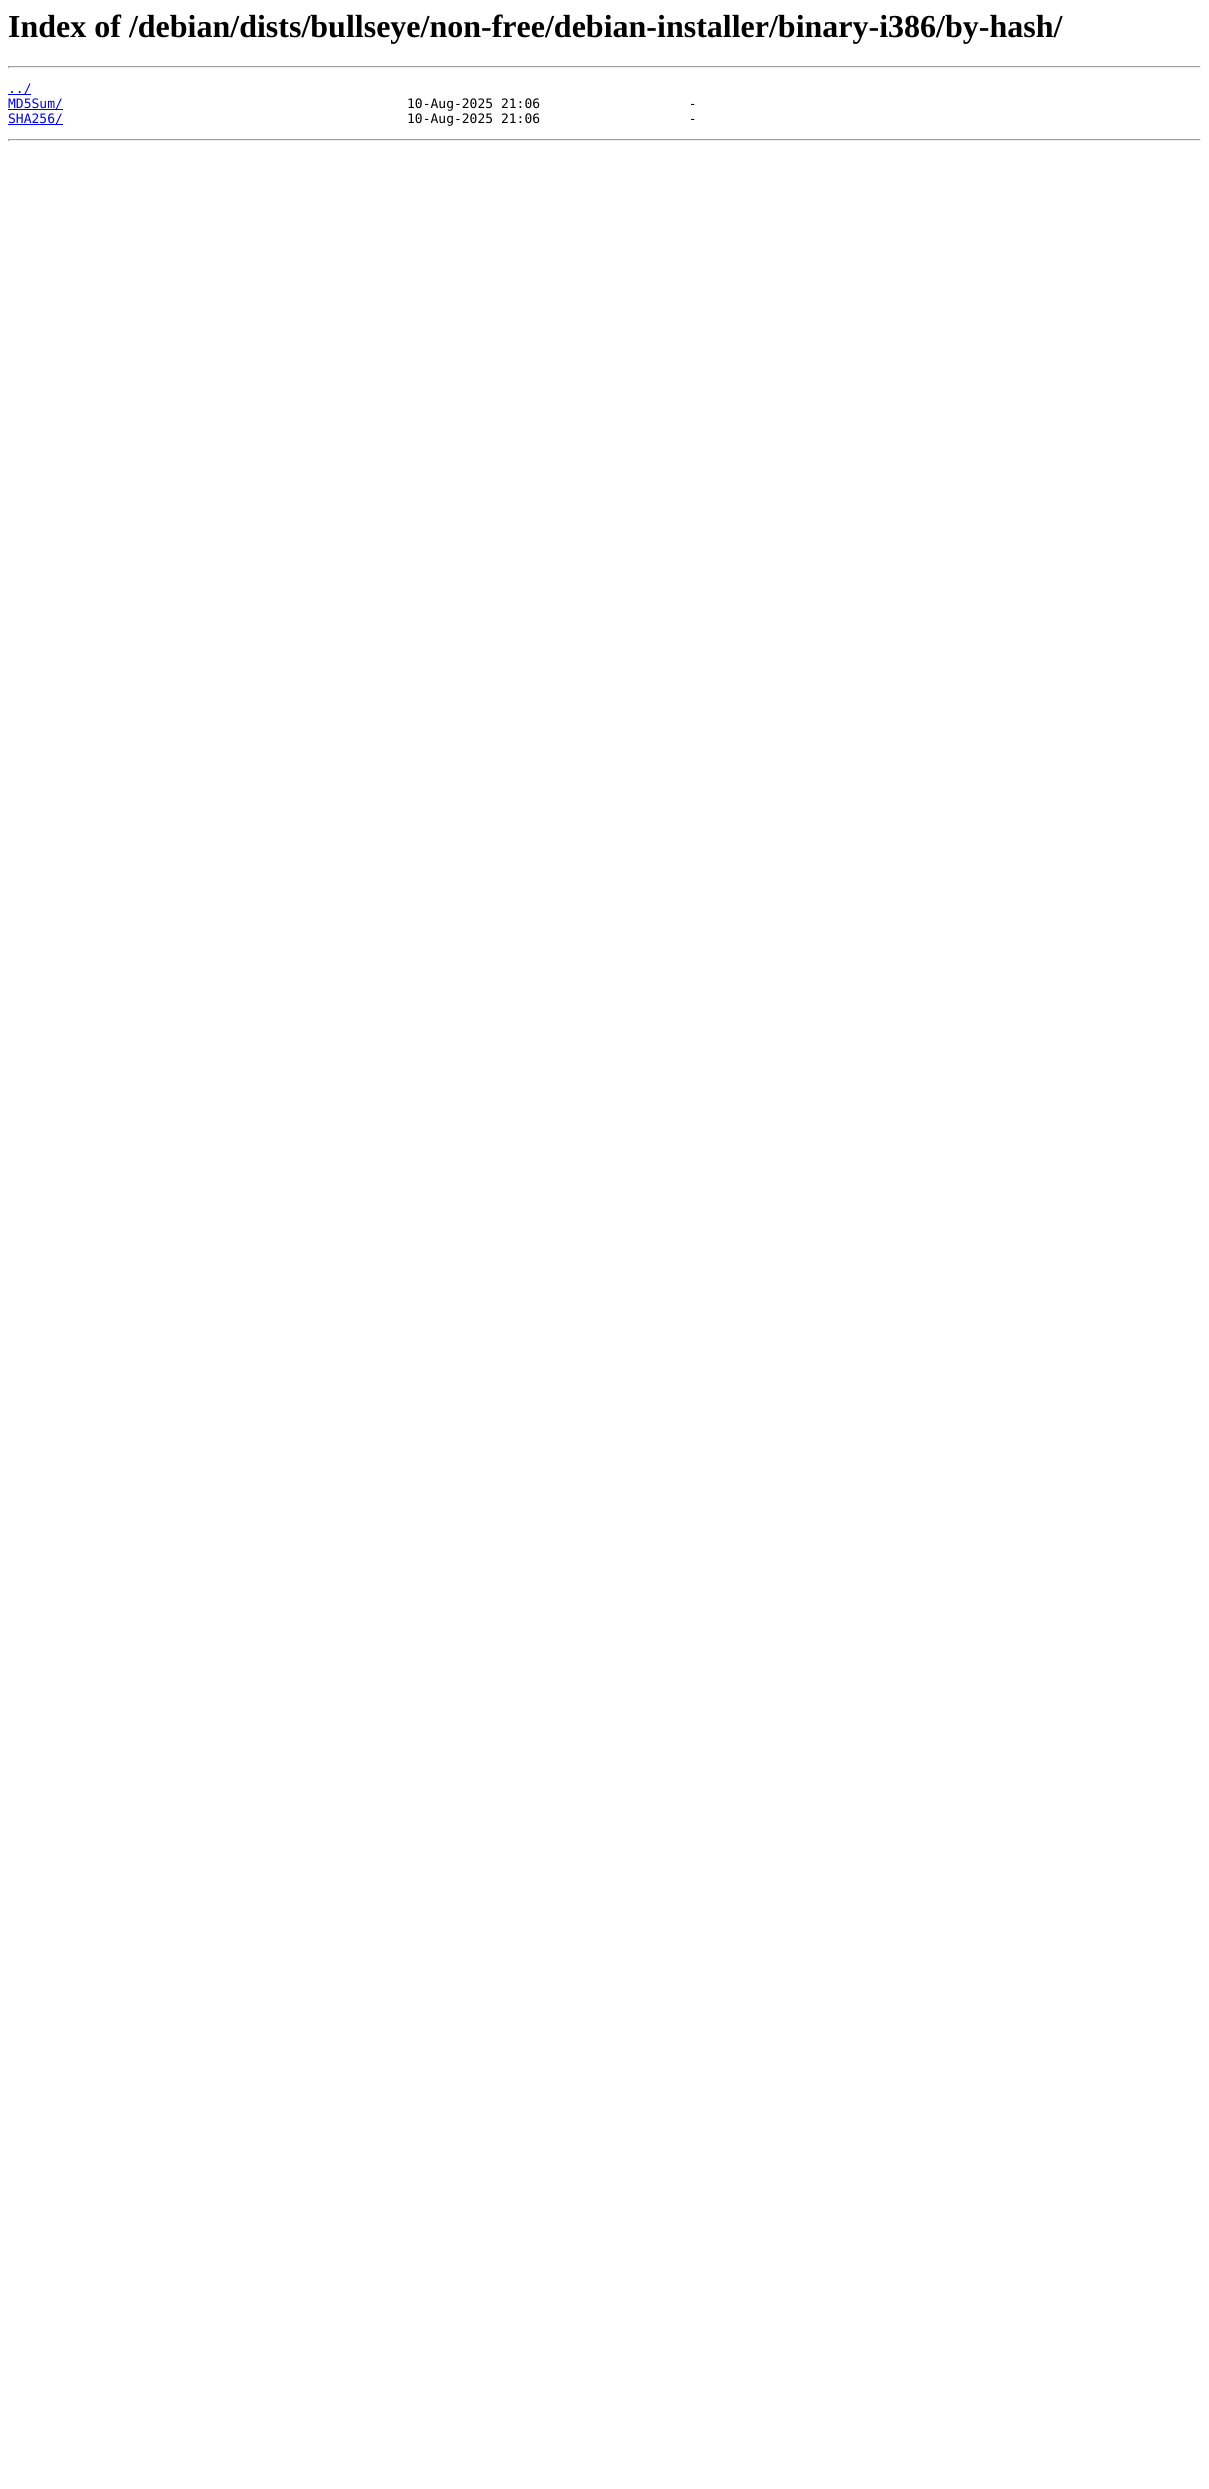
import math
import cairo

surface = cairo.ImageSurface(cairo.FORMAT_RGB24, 1209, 2489)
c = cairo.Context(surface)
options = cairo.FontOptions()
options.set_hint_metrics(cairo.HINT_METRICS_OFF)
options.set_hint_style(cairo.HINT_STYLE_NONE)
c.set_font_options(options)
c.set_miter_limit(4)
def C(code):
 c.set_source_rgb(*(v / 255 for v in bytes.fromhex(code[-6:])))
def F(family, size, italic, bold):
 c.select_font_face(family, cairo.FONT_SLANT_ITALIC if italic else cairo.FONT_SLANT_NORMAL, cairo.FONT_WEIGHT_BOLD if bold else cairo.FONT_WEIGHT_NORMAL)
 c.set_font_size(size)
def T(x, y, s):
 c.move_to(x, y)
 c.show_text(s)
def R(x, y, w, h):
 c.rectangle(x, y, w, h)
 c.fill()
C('ffffff')
c.paint()
F('Liberation Serif',32,0,1)
C('000000')
T(8,37,'Index of /debian/dists/bullseye/non-free/debian-installer/binary-i386/by-hash/')
C('9f9f9f')
R(8,66,1193,1)
C('eeeeee')
R(1200,66,1,2)
R(8,67,1193,1)
C('9f9f9f')
R(8,66,1,2)
C('0000ee')
R(8,94,23,1)
F('DejaVu Sans Mono',13,0,0)
T(8,93,'../')
R(8,109,55,1)
T(8,108,'MD5Sum/')
C('000000')
T(407,108,'10-Aug-2025 21:06                   -')
C('0000ee')
R(8,124,55,1)
T(8,123,'SHA256/')
C('000000')
T(407,123,'10-Aug-2025 21:06                   -')
C('9f9f9f')
R(8,139,1193,1)
C('eeeeee')
R(1200,139,1,2)
R(8,140,1193,1)
C('9f9f9f')
R(8,139,1,2)
surface.write_to_png('o.png')
